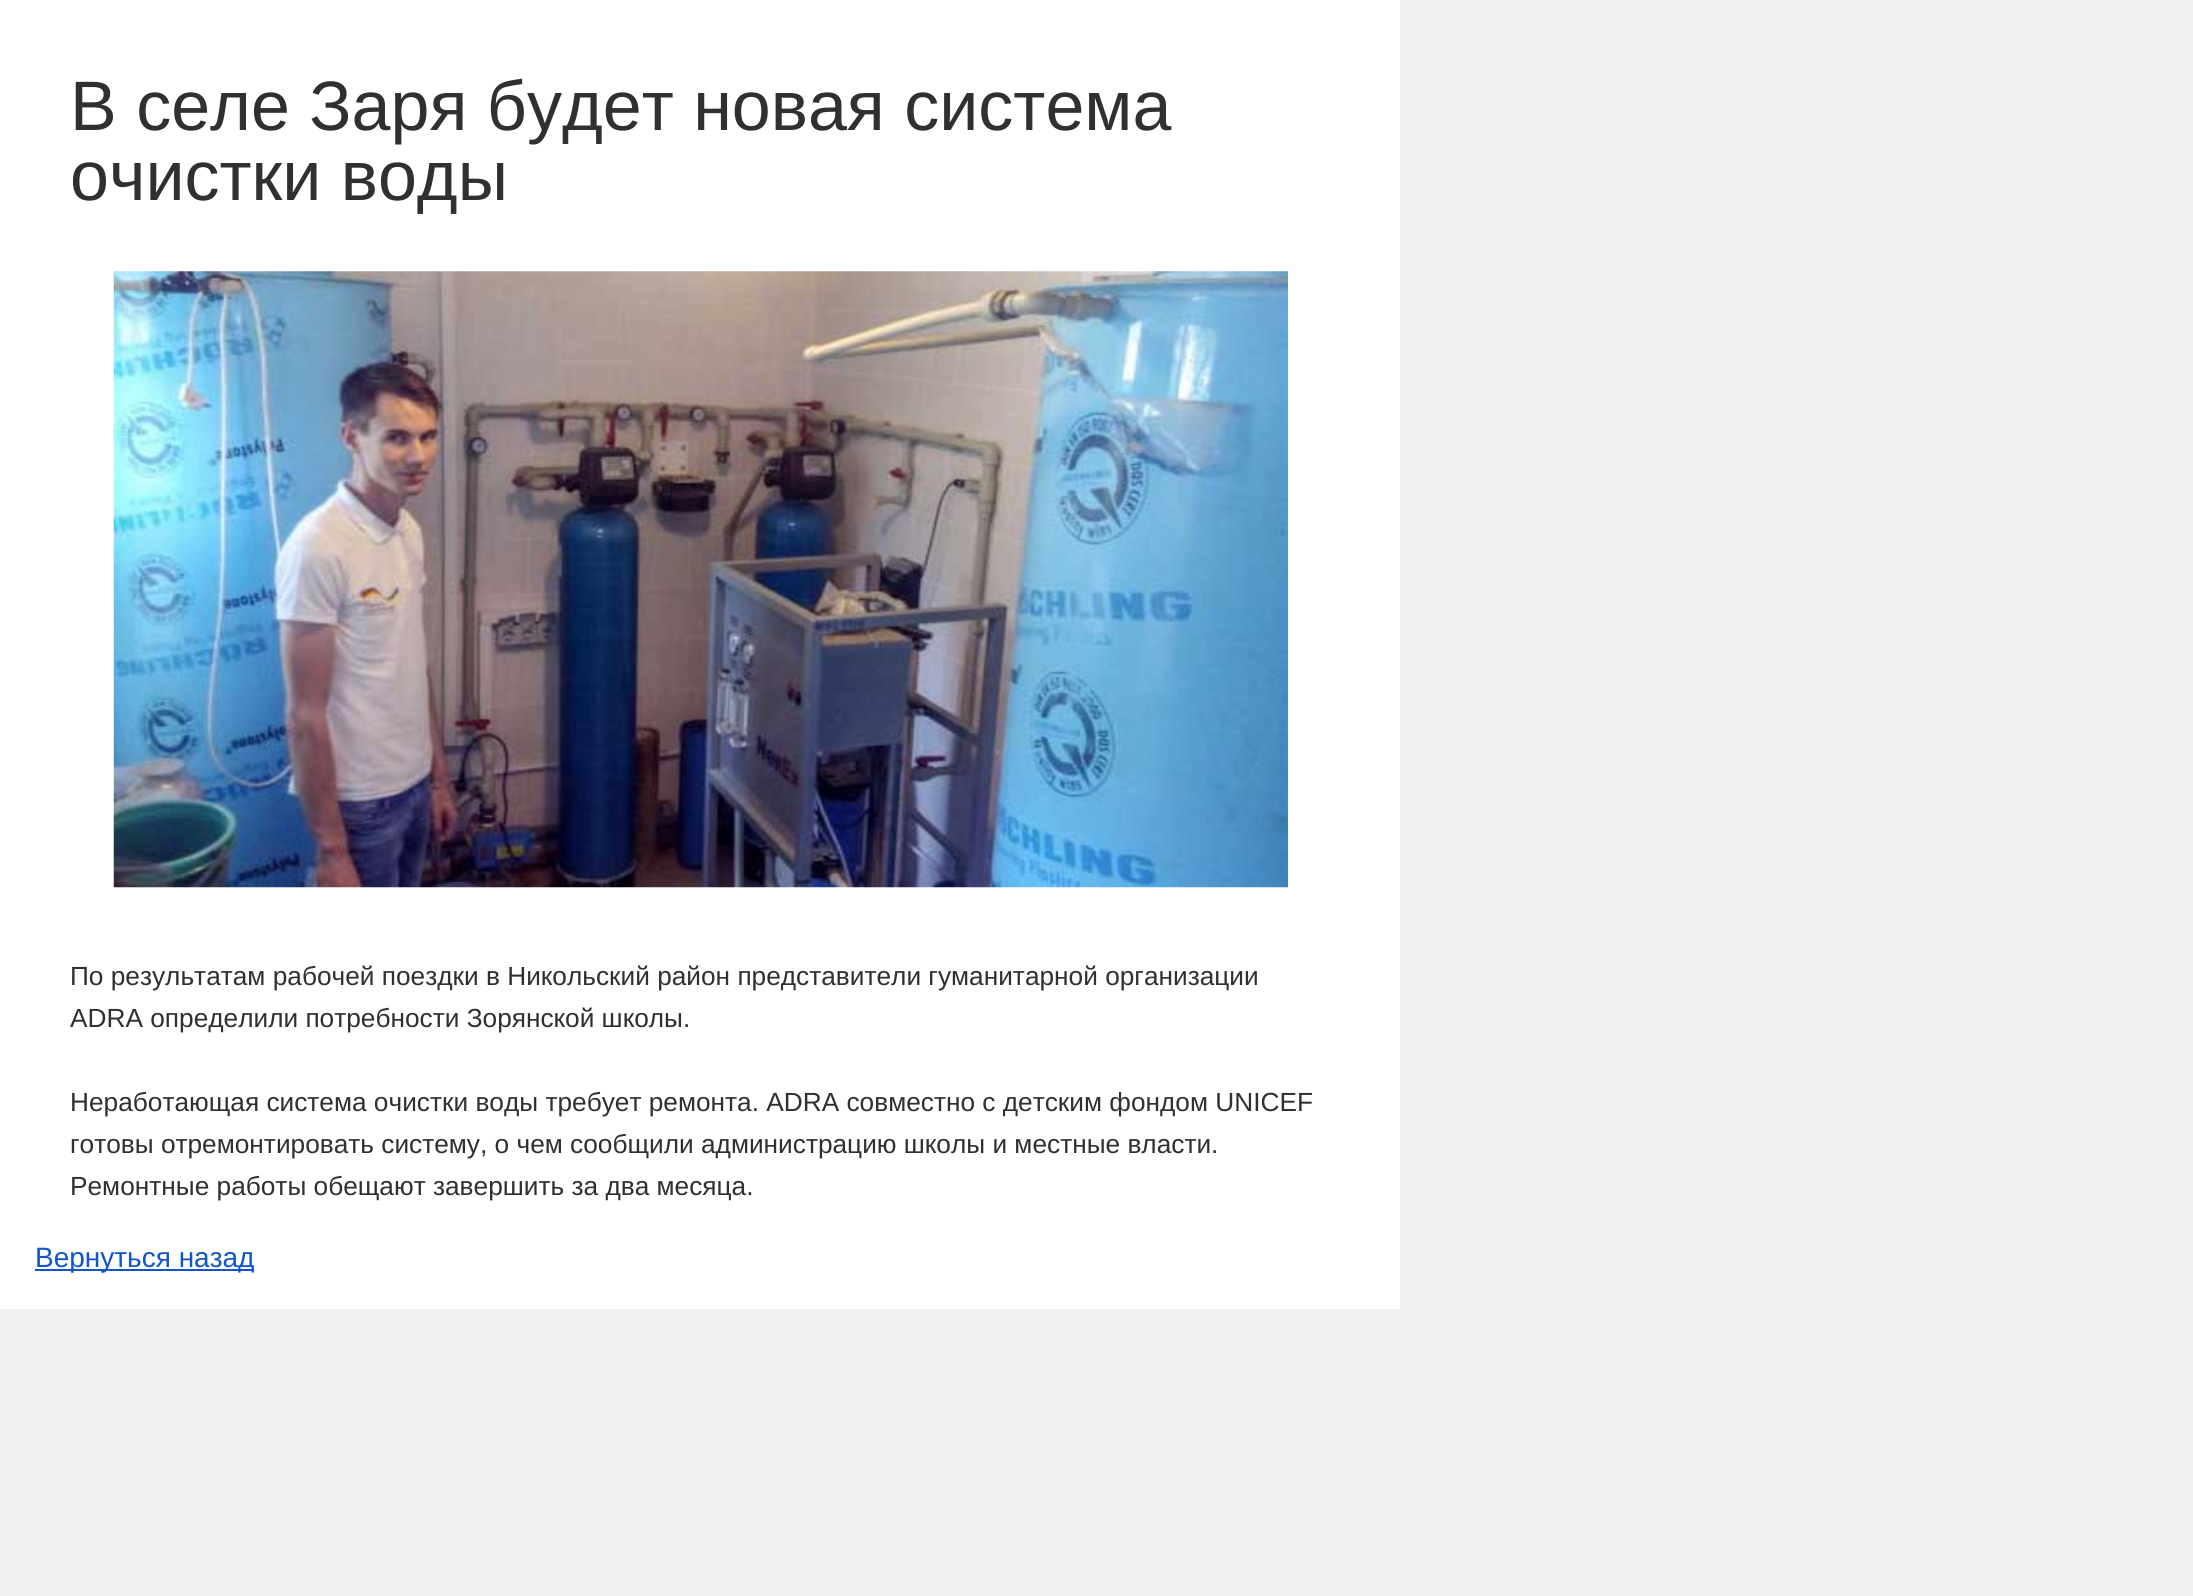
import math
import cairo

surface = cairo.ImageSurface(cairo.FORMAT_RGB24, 2193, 1596)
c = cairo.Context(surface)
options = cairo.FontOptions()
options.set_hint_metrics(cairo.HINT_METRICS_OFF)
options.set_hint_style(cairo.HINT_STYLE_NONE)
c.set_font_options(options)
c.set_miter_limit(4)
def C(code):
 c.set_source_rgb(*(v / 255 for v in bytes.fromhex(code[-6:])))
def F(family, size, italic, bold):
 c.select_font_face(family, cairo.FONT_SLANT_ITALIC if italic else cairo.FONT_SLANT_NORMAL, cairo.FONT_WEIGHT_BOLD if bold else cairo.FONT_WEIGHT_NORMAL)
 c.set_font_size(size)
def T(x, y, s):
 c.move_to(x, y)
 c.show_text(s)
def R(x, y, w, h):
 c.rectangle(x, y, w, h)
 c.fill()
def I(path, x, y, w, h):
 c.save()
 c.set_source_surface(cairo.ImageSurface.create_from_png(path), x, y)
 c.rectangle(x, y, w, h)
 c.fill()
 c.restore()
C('f1f1f1')
c.paint()
C('ffffff')
R(0,0,1400,1309)
F('Liberation Sans',70,0,0)
C('303030')
T(70,130,'В селе Заря будет новая система')
T(70,200,'очистки воды')
I('1.png',113,271,1175,617)
F('Liberation Sans',26.25,0,0)
T(70,985,'По результатам рабочей поездки в Никольский район представители гуманитарной организации')
T(70,1027,'ADRA определили потребности Зорянской школы.')
T(70,1111,'Неработающая система очистки воды требует ремонта. ADRA совместно с детским фондом UNICEF')
T(70,1153,'готовы отремонтировать систему, о чем сообщили администрацию школы и местные власти.')
T(70,1195,'Ремонтные работы обещают завершить за два месяца.')
C('1155cc')
R(35,1269,219,2)
F('Liberation Sans',28,0,0)
T(35,1267,'Вернуться назад')
surface.write_to_png('o.png')
